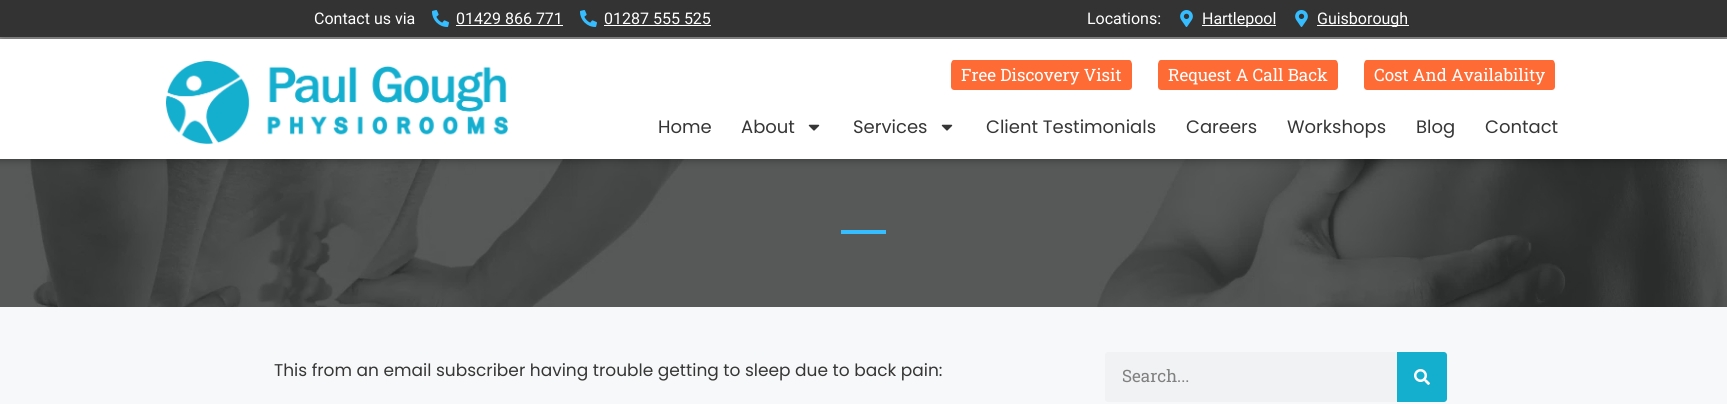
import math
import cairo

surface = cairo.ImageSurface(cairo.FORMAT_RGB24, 1727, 404)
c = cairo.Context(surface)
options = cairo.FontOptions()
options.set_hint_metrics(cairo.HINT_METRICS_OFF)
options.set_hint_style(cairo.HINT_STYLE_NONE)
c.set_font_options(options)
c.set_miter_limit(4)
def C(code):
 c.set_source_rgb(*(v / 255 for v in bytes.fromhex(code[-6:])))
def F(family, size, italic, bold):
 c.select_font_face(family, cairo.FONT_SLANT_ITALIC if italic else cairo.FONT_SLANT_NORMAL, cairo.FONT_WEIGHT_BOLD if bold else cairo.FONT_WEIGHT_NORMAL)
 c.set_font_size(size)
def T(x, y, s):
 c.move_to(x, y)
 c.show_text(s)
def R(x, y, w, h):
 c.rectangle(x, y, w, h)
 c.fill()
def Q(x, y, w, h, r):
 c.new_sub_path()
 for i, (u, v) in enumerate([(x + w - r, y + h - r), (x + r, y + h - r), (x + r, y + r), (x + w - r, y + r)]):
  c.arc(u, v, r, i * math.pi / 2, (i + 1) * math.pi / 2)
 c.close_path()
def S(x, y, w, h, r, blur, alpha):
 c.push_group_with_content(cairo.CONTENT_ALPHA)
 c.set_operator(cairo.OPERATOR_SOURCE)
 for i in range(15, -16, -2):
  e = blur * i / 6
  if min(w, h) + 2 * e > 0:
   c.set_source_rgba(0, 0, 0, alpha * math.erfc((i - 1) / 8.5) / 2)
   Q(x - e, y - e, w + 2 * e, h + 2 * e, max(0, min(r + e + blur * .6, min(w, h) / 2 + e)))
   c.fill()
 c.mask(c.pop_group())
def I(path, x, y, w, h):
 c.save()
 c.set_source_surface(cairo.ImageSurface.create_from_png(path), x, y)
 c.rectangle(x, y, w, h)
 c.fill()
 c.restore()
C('f7f8f9')
c.paint()
C('2f3232')
R(0,159,1727,148)
I('5.png',0,159,1727,148)
C('000000')
S(-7,24,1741,134,0,5,.5)
C('333333')
R(0,0,1727,37)
F('Roboto',16,0,0)
C('ffffff')
T(314,24,'Contact us via')
I('1.png',432,10,17,17)
T(456,24,'01429 866 771')
R(456,25,107,1)
I('1.png',580,10,17,17)
T(604,24,'01287 555 525')
R(604,25,107,1)
T(1087,24,'Locations:')
I('2.png',1180,10,13,17)
R(1202,25,74,1)
T(1202,24,'Hartlepool')
I('2.png',1295,10,13,17)
R(1317,25,92,1)
c.save()
c.rectangle(874,10,535,17)
c.clip()
T(1317,24,'Guisborough')
c.restore()
R(0,39,1727,120)
I('3.png',166,61,342,83)
C('ff6b35')
c.new_path()
c.move_to(954,60)
c.line_to(1129,60)
c.curve_to(1131,60,1132,62,1132,64)
c.line_to(1132,87)
c.curve_to(1132,89,1131,90,1129,90)
c.line_to(954,90)
c.curve_to(952,90,951,89,951,87)
c.line_to(951,64)
c.curve_to(951,62,952,60,954,60)
c.close_path()
c.fill()
C('ffffff')
c.set_fill_rule(cairo.FILL_RULE_EVEN_ODD)
c.new_path()
c.move_to(954,60)
c.line_to(1129,60)
c.curve_to(1131,60,1133,62,1133,64)
c.line_to(1133,87)
c.curve_to(1133,89,1131,91,1129,91)
c.line_to(954,91)
c.curve_to(952,91,950,89,950,87)
c.line_to(950,64)
c.curve_to(950,62,952,60,954,60)
c.close_path()
c.move_to(954,60)
c.line_to(1129,60)
c.curve_to(1131,60,1132,62,1132,64)
c.line_to(1132,87)
c.curve_to(1132,89,1131,90,1129,90)
c.line_to(954,90)
c.curve_to(952,90,951,89,951,87)
c.line_to(951,64)
c.curve_to(951,62,952,60,954,60)
c.close_path()
c.fill()
F('Roboto Slab',17,0,0)
T(961,81,'Free Discovery Visit')
C('ff6b35')
c.set_fill_rule(cairo.FILL_RULE_WINDING)
c.new_path()
c.move_to(1161,60)
c.line_to(1335,60)
c.curve_to(1337,60,1338,62,1338,64)
c.line_to(1338,87)
c.curve_to(1338,89,1337,90,1335,90)
c.line_to(1161,90)
c.curve_to(1159,90,1158,89,1158,87)
c.line_to(1158,64)
c.curve_to(1158,62,1159,60,1161,60)
c.close_path()
c.fill()
C('ffffff')
c.set_fill_rule(cairo.FILL_RULE_EVEN_ODD)
c.new_path()
c.move_to(1161,60)
c.line_to(1335,60)
c.curve_to(1337,60,1339,62,1339,64)
c.line_to(1339,87)
c.curve_to(1339,89,1337,91,1335,91)
c.line_to(1161,91)
c.curve_to(1159,91,1157,89,1157,87)
c.line_to(1157,64)
c.curve_to(1157,62,1159,60,1161,60)
c.close_path()
c.move_to(1161,60)
c.line_to(1335,60)
c.curve_to(1337,60,1338,62,1338,64)
c.line_to(1338,87)
c.curve_to(1338,89,1337,90,1335,90)
c.line_to(1161,90)
c.curve_to(1159,90,1158,89,1158,87)
c.line_to(1158,64)
c.curve_to(1158,62,1159,60,1161,60)
c.close_path()
c.fill()
T(1168,81,'Request A Call Back')
C('ff6b35')
c.set_fill_rule(cairo.FILL_RULE_WINDING)
c.new_path()
c.move_to(1367,60)
c.line_to(1552,60)
c.curve_to(1554,60,1555,62,1555,64)
c.line_to(1555,87)
c.curve_to(1555,89,1554,90,1552,90)
c.line_to(1367,90)
c.curve_to(1365,90,1364,89,1364,87)
c.line_to(1364,64)
c.curve_to(1364,62,1365,60,1367,60)
c.close_path()
c.fill()
C('ffffff')
c.set_fill_rule(cairo.FILL_RULE_EVEN_ODD)
c.new_path()
c.move_to(1367,60)
c.line_to(1552,60)
c.curve_to(1554,60,1556,62,1556,64)
c.line_to(1556,87)
c.curve_to(1556,89,1554,91,1552,91)
c.line_to(1367,91)
c.curve_to(1365,91,1363,89,1363,87)
c.line_to(1363,64)
c.curve_to(1363,62,1365,60,1367,60)
c.close_path()
c.move_to(1367,60)
c.line_to(1552,60)
c.curve_to(1554,60,1555,62,1555,64)
c.line_to(1555,87)
c.curve_to(1555,89,1554,90,1552,90)
c.line_to(1367,90)
c.curve_to(1365,90,1364,89,1364,87)
c.line_to(1364,64)
c.curve_to(1364,62,1365,60,1367,60)
c.close_path()
c.fill()
T(1374,81,'Cost And Availability')
F('Poppins',18,0,0)
C('363636')
T(658,133,'Home')
T(741,133,'About')
I('4.png',808,124,12,7)
T(853,133,'Services')
I('4.png',941,124,12,7)
T(986,133,'Client Testimonials')
T(1186,133,'Careers')
T(1287,133,'Workshops')
T(1416,133,'Blog')
T(1485,133,'Contact')
C('35bdff')
R(841,230,45,4)
F('Poppins',17,0,0)
C('363636')
T(274,376,'This from an email subscriber having trouble getting to sleep due to back pain:')
C('f1f2f3')
Q(1105,352,342,50,3)
c.fill()
F('Roboto Slab',17,0,0)
C('818182')
T(1122,382,'Search...')
C('14aecf')
c.new_path()
c.move_to(1397,352)
c.line_to(1444,352)
c.curve_to(1445.5,352,1447,353.5,1447,355)
c.line_to(1447,399)
c.curve_to(1447,400.5,1445.5,402,1444,402)
c.line_to(1397,402)
c.close_path()
c.fill()
I('6.png',1414,369,16,16)
surface.write_to_png('o.png')
